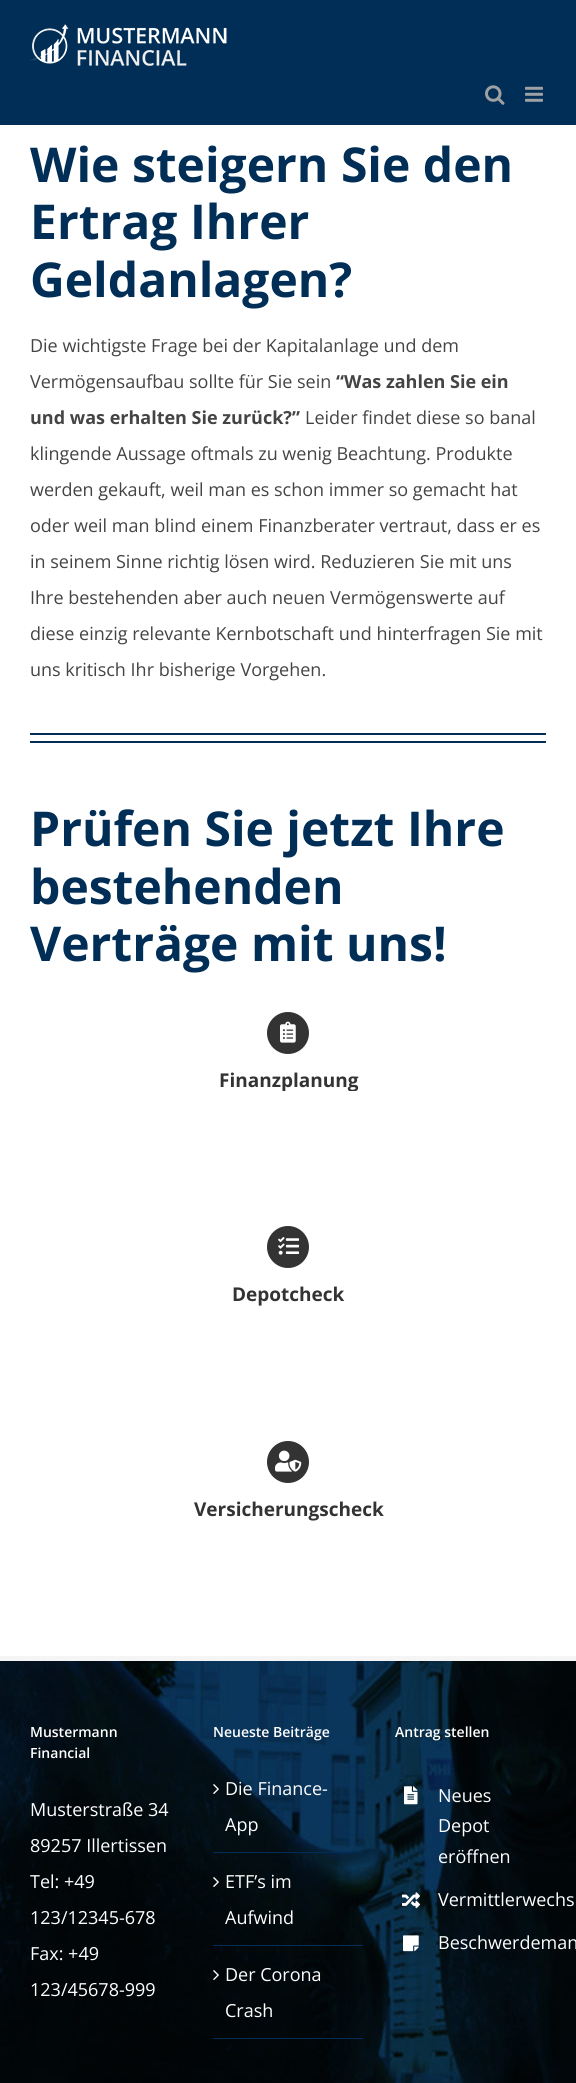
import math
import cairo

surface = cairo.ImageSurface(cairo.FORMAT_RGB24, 576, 2083)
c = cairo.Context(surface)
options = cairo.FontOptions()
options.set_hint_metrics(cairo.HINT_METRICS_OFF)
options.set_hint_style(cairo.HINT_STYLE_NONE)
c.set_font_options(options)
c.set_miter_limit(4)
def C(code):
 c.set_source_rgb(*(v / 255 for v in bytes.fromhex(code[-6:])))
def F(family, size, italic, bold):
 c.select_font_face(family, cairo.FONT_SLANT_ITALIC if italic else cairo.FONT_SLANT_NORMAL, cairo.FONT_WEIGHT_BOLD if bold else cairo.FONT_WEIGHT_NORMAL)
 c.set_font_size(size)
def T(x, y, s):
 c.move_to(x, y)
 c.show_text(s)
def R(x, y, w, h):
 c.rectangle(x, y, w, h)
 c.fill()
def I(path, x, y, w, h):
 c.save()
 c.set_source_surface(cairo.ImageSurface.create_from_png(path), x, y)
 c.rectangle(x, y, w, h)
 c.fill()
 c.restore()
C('ffffff')
c.paint()
C('002e56')
R(0,0,576,125)
I('1.png',30,24,197,42)
I('2.png',485,85,20,20)
I('3.png',525,86,18,16)
F('Open Sans',48,0,1)
T(30,182,'Wie steigern Sie den')
T(30,239,'Ertrag Ihrer')
T(30,297,'Geldanlagen?')
F('Open Sans',18,0,0)
C('444444')
T(30,352,'Die wichtigste Frage bei der Kapitalanlage und dem')
T(30,388,'Vermögensaufbau sollte für Sie sein')
F('Open Sans',18,0,1)
T(336,388,'“Was zahlen Sie ein')
T(30,424,'und was erhalten Sie zurück?”')
F('Open Sans',18,0,0)
T(305,424,'Leider findet diese so banal')
T(30,460,'klingende Aussage oftmals zu wenig Beachtung. Produkte')
T(30,496,'werden gekauft, weil man es schon immer so gemacht hat')
T(30,532,'oder weil man blind einem Finanzberater vertraut, dass er es')
T(30,568,'in seinem Sinne richtig lösen wird. Reduzieren Sie mit uns')
T(30,604,'Ihre bestehenden aber auch neuen Vermögenswerte auf')
T(30,640,'diese einzig relevante Kernbotschaft und hinterfragen Sie mit')
T(30,676,'uns kritisch Ihr bisherige Vorgehen.')
C('002e56')
R(30,733,516,2)
R(30,741,516,2)
F('Open Sans',48,0,1)
T(30,846,'Prüfen Sie jetzt Ihre')
T(30,904,'bestehenden')
T(30,961,'Verträge mit uns!')
C('333333')
c.new_path()
c.arc(288,1033,21,0,2 * math.pi)
c.fill()
I('4.png',280,1021,16,22)
c.save()
c.rectangle(30,1012,516,79)
c.clip()
F('Open Sans',19,0,1)
T(219,1087,'Finanzplanung')
c.restore()
c.new_path()
c.arc(288,1247,21,0,2 * math.pi)
c.fill()
I('5.png',278,1237,22,18)
F('Open Sans',19,0,1)
T(232,1301,'Depotcheck')
c.new_path()
c.arc(288,1462,21,0,2 * math.pi)
c.fill()
I('6.png',275,1450,27,22)
T(194,1516,'Versicherungscheck')
I('7.png',0,1661,576,422)
C('f5f5f5')
R(0,1656,576,5)
F('Open Sans SemiBold',14,0,0)
C('ffffff')
T(30,1737,'Mustermann')
T(30,1758,'Financial')
F('Open Sans',18,0,0)
T(30,1816,'Musterstraße 34')
T(30,1852,'89257 Illertissen')
T(30,1888,'Tel: +49')
T(30,1924,'123/12345-678')
T(30,1960,'Fax: +49')
T(30,1996,'123/45678-999')
F('Open Sans SemiBold',14,0,0)
T(213,1737,'Neueste Beiträge')
C('002e56')
R(213,1852,150,1)
I('8.png',213,1784,6,10)
F('Open Sans',18,0,0)
C('ffffff')
T(225,1795,'Die Finance-')
T(225,1831,'App')
C('002e56')
R(213,1945,150,1)
I('9.png',213,1877,6,10)
C('ffffff')
T(225,1888,'ETF’s im')
T(225,1924,'Aufwind')
C('002e56')
R(213,2038,150,1)
I('10.png',213,1970,6,10)
C('ffffff')
T(225,1981,'Der Corona')
T(225,2017,'Crash')
F('Open Sans SemiBold',14,0,0)
T(395,1737,'Antrag stellen')
I('11.png',404,1786,14,19)
F('Open Sans',18,0,0)
T(438,1802,'Neues')
T(438,1832,'Depot')
T(438,1863,'eröffnen')
I('12.png',402,1892,18,17)
T(438,1906,'Vermittlerwechs')
I('13.png',403,1935,16,17)
T(438,1949,'Beschwerdeman')
surface.write_to_png('o.png')
